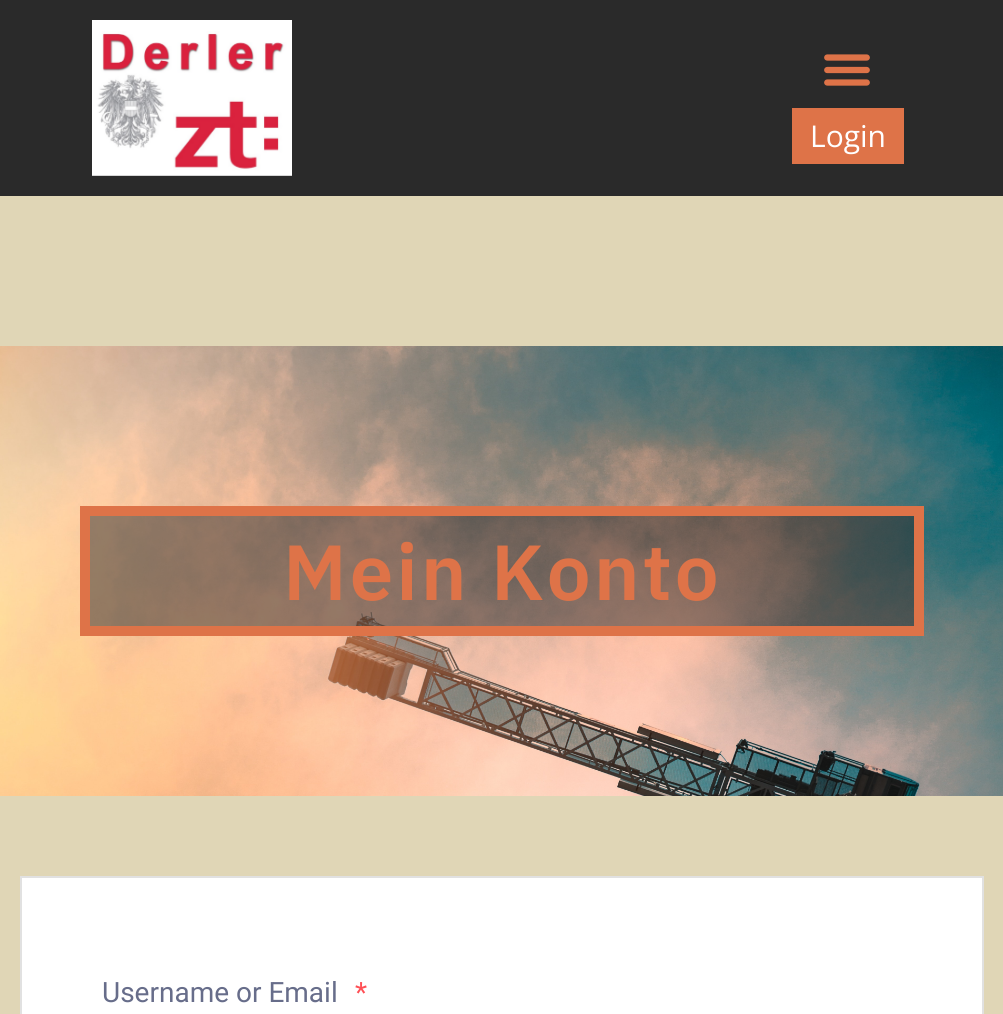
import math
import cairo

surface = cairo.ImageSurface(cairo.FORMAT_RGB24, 1003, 1014)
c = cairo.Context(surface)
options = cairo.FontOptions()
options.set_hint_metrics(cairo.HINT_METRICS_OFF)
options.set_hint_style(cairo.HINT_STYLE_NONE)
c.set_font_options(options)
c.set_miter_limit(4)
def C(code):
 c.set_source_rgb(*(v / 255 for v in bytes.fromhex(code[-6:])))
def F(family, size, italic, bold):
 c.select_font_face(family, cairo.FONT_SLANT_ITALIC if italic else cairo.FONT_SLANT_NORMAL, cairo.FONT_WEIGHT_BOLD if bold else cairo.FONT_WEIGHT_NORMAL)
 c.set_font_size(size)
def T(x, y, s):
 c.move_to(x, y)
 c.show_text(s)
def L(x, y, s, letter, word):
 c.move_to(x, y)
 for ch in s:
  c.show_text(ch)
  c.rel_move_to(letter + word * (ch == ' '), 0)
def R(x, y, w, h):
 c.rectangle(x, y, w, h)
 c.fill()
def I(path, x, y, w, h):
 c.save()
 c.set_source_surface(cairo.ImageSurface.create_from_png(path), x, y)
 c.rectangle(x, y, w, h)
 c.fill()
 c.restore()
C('e0d6b6')
c.paint()
C('2a2a2a')
R(0,0,1003,196)
I('1.png',92,20,200,156)
I('2.png',824,54,46,32)
C('de7348')
R(792,108,112,56)
F('Open Sans',30,0,0)
C('ffffff')
T(810,147,'Login')
I('3.png',0,346,1003,450)
c.set_source_rgba(0.165,0.165,0.165,0.5)
c.rectangle(85,511,834,120)
c.fill_preserve()
C('de7348')
c.set_line_width(10)
c.stroke()
F('IBM Plex Sans SemiBold',78,0,0)
L(283,600,'Mein Konto',3,0)
C('ffffff')
c.rectangle(21,877,962,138)
c.fill_preserve()
C('e1e1e1')
c.set_line_width(2)
c.stroke()
F('Roboto',28,0,0)
C('676d8a')
T(102,1002,'Username or Email')
C('ff4f55')
T(355,1002,'*')
surface.write_to_png('o.png')
